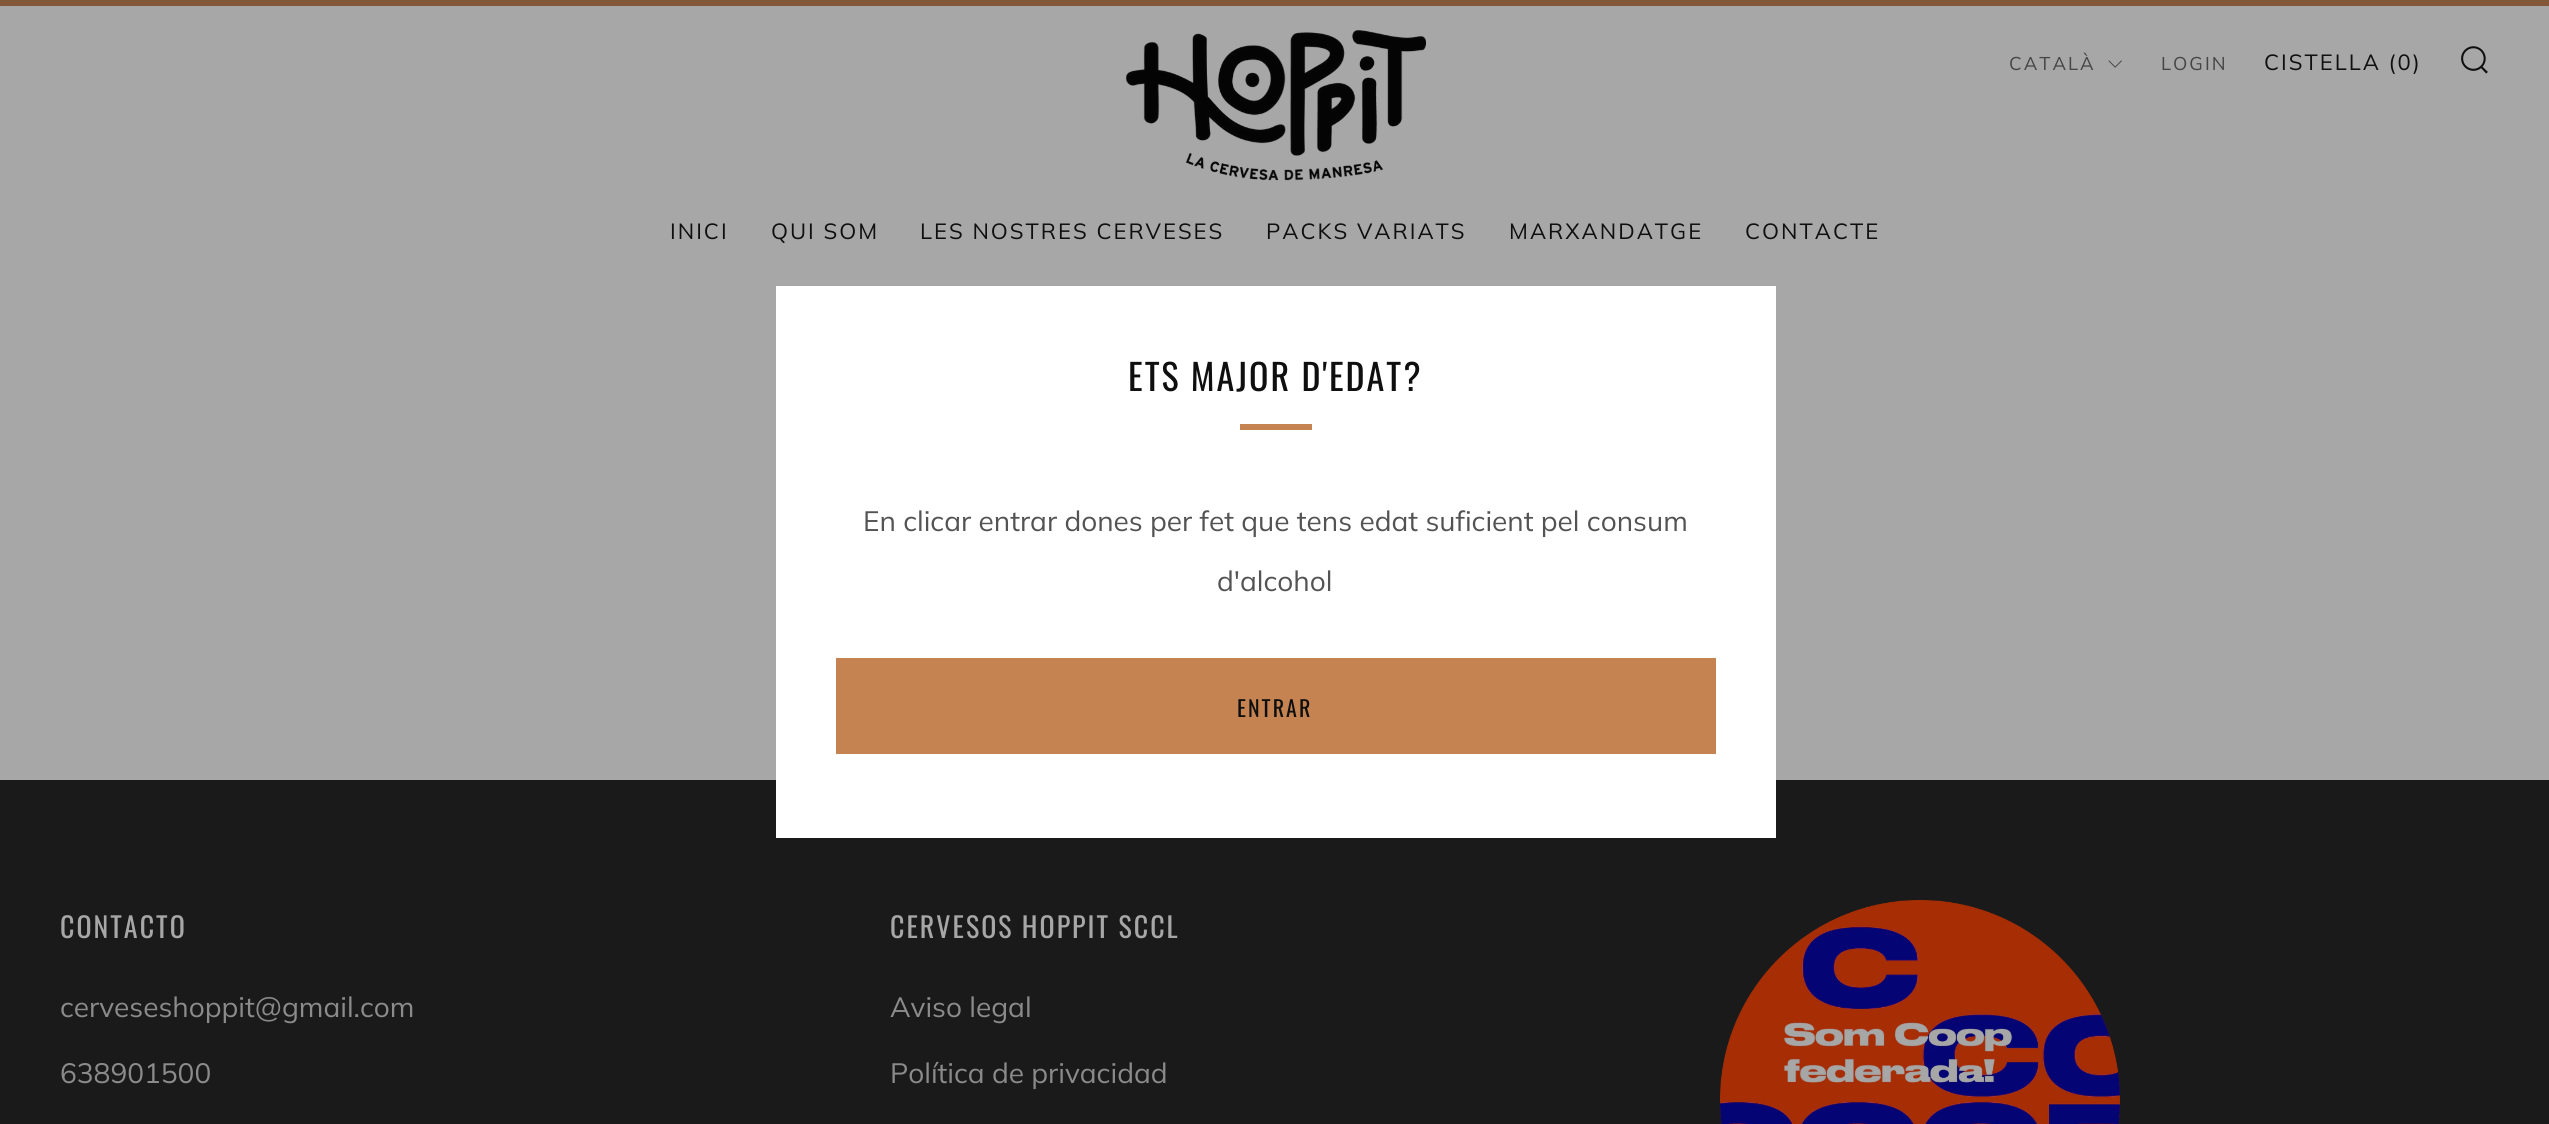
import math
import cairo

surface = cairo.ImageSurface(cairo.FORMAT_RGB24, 2549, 1124)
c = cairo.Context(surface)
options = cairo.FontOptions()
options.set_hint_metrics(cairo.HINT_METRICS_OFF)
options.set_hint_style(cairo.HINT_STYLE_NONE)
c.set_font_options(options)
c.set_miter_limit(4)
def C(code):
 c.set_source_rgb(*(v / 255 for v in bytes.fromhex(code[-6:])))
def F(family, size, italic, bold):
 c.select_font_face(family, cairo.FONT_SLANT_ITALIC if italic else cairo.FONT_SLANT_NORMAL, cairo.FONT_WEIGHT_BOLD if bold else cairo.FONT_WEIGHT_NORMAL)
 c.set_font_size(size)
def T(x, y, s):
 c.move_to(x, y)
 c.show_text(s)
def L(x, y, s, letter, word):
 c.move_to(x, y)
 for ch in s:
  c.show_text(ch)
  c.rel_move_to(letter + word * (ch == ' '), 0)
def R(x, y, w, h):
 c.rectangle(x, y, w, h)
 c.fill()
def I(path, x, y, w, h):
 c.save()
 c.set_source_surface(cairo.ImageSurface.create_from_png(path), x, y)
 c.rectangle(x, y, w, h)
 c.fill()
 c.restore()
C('a7a7a7')
c.paint()
C('825838')
R(0,0,2549,6)
I('1.png',1126,30,300,151)
F('Muli',18.5,0,0)
C('454545')
L(2009,70,'CATALÀ',2,0)
I('2.png',2108,60,14,8)
L(2161,70,'LOGIN',2,0)
F('Muli',22,0,0)
C('0f0f0f')
L(2264,70,'CISTELLA (0)',2,0)
I('3.png',2461,46,27,28)
L(670,239,'INICI',2,0)
L(771,239,'QUI SOM',2,0)
L(920,239,'LES NOSTRES CERVESES',2,0)
L(1266,239,'PACKS VARIATS',2,0)
L(1509,239,'MARXANDATGE',2,0)
L(1745,239,'CONTACTE',2,0)
C('1a1a1a')
R(0,780,2549,344)
F('Oswald',28,0,0)
C('a7a7a7')
L(60,938,'CONTACTO',2,0)
F('Muli',28,0,0)
C('8b8b8b')
T(60,1017,'cerveseshoppit@gmail.com')
T(60,1083,'638901500')
F('Oswald',28,0,0)
C('a7a7a7')
L(890,938,'CERVESOS HOPPIT SCCL',2,0)
F('Muli',28,0,0)
C('8b8b8b')
T(890,1017,'Aviso legal')
T(890,1083,'Política de privacidad')
I('4.png',1720,900,400,224)
C('ffffff')
R(776,286,1000,552)
F('Oswald',36,0,0)
C('0f0f0f')
L(1128,391,'ETS MAJOR D\'EDAT?',2,0)
C('c58351')
R(1240,424,72,6)
F('Muli',28,0,0)
C('535353')
T(863,531,'En clicar entrar dones per fet que tens edat suficient pel consum')
T(1217,591,'d\'alcohol')
C('c58351')
R(836,658,880,96)
F('Oswald',22,0,0)
C('0f0f0f')
L(1237,717,'ENTRAR',2,0)
surface.write_to_png('o.png')
